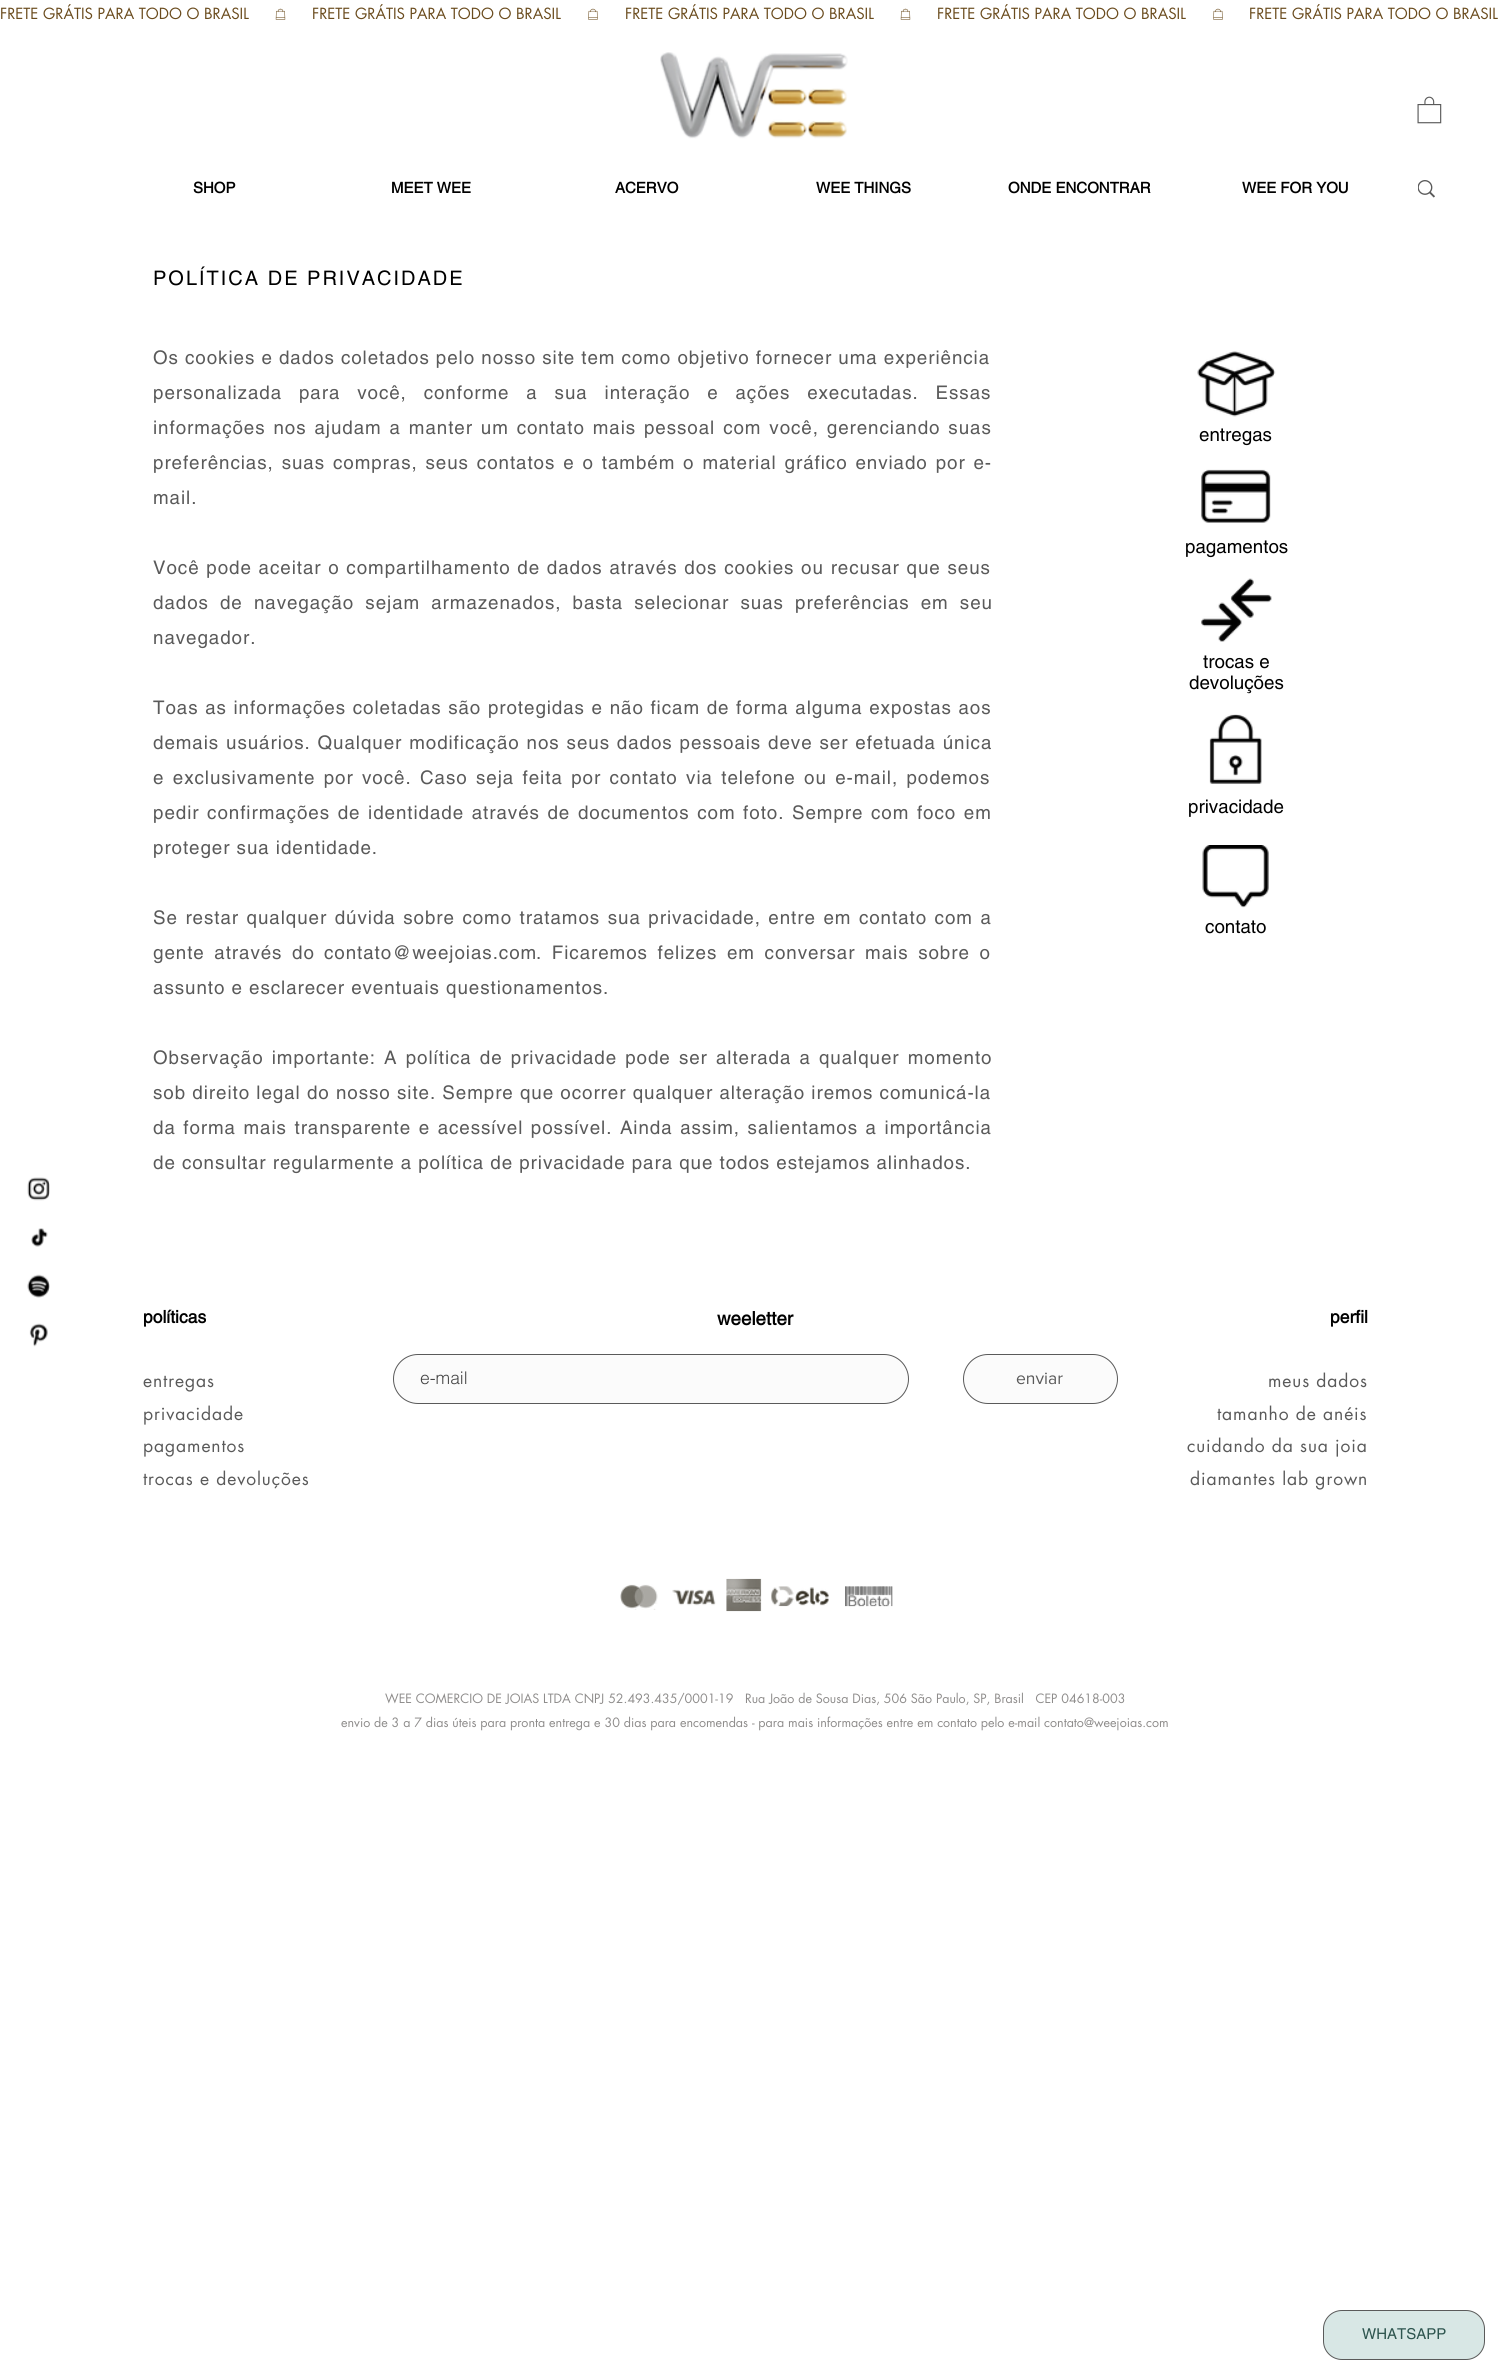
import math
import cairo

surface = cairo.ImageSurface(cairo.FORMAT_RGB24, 1510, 2372)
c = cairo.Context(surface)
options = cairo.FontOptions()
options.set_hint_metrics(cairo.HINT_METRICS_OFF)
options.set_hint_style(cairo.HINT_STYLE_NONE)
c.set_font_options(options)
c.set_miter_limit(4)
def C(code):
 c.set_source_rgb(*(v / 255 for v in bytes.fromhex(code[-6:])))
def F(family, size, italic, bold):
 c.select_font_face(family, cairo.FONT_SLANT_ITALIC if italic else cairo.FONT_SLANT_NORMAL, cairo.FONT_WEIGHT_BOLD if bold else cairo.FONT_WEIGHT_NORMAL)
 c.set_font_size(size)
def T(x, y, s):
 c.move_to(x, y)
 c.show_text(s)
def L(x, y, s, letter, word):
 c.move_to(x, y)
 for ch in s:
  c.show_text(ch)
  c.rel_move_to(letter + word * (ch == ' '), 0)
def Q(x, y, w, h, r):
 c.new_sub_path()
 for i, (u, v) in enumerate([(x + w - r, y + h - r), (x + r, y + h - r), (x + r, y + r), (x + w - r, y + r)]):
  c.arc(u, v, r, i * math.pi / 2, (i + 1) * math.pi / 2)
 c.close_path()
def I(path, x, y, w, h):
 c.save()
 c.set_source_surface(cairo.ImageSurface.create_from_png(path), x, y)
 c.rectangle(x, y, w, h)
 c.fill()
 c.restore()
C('ffffff')
c.paint()
F('futura',15,0,0)
C('6a4b1d')
T(0,19,'FRETE GRÁTIS PARA TODO O BRASIL')
I('1.png',275,8,11,12)
T(312,19,'FRETE GRÁTIS PARA TODO O BRASIL')
I('2.png',588,8,10,12)
T(625,19,'FRETE GRÁTIS PARA TODO O BRASIL')
I('1.png',900,8,11,12)
T(937,19,'FRETE GRÁTIS PARA TODO O BRASIL')
I('2.png',1213,8,10,12)
T(1249,19,'FRETE GRÁTIS PARA TODO O BRASIL')
I('3.png',660,52,188,87)
I('4.png',1417,96,25,28)
F('helvetica',15,0,1)
C('000000')
T(193,193,'SHOP')
T(391,193,'MEET WEE')
T(615,193,'ACERVO')
T(816,193,'WEE THINGS')
T(1008,193,'ONDE ENCONTRAR')
T(1242,193,'WEE FOR YOU')
I('5.png',1418,180,17,18)
F('helvetica',20,0,0)
L(153,285,'POLÍTICA DE PRIVACIDADE',2,0)
F('helvetica',18.75,0,0)
C('5a5a5a')
L(153,364,'Os cookies e dados coletados pelo nosso site tem como objetivo fornecer uma experiência',.95,0)
L(153,399,'personalizada para você, conforme a sua interação e ações executadas. Essas',.95,10.75)
L(153,434,'informações nos ajudam a manter um contato mais pessoal com você, gerenciando suas',.95,1.75)
L(153,469,'preferências, suas compras, seus contatos e o também o material gráfico enviado por e-',.95,1.75)
L(153,504,'mail.',.95,0)
L(153,574,'Você pode aceitar o compartilhamento de dados através dos cookies ou recusar que seus',.95,.6)
L(153,609,'dados de navegação sejam armazenados, basta selecionar suas preferências em seu',.95,5)
L(153,644,'navegador.',.95,0)
L(153,714,'Toas as informações coletadas são protegidas e não ficam de forma alguma expostas aos',.95,.5)
L(153,749,'demais usuários. Qualquer modificação nos seus dados pessoais deve ser efetuada única',.95,.75)
L(153,784,'e exclusivamente por você. Caso seja feita por contato via telefone ou e-mail, podemos',.95,2.25)
L(153,819,'pedir confirmações de identidade através de documentos com foto. Sempre com foco em',.95,1.5)
L(153,854,'proteger sua identidade.',.95,0)
L(153,924,'Se restar qualquer dúvida sobre como tratamos sua privacidade, entre em contato com a',.95,1.4)
L(153,959,'gente através do',.95,3.5)
L(324,959,'contato@weejoias.com',.95,0)
L(536,959,'. Ficaremos felizes em conversar mais sobre o',.95,3.5)
L(153,994,'assunto e esclarecer eventuais questionamentos.',.95,0)
L(153,1064,'Observação importante: A política de privacidade pode ser alterada a qualquer momento',.95,2)
L(153,1099,'sob direito legal do nosso site. Sempre que ocorrer qualquer alteração iremos comunicá-la',.95,.1)
L(153,1134,'da forma mais transparente e acessível possível. Ainda assim, salientamos a importância',.95,1.4)
L(153,1169,'de consultar regularmente a política de privacidade para que todos estejamos alinhados.',.95,0)
I('6.png',1197,351,79,66)
C('000000')
T(1199,441,'entregas')
I('7.png',1201,469,70,54)
T(1185,553,'pagamentos')
I('8.png',1201,578,71,64)
T(1203,668,'trocas e')
T(1189,689,'devoluções')
I('9.png',1209,714,53,70)
T(1188,813,'privacidade')
I('10.png',1202,845,67,63)
T(1205,933,'contato')
I('11.png',27,1177,23,24)
I('12.png',31,1228,17,19)
I('13.png',27,1274,23,24)
I('14.png',29,1323,19,24)
F('helvetica',17.5,0,1)
T(143,1323,'políticas')
F('futura',17.5,0,0)
C('5a5a5a')
L(143,1387,'entregas',.9,0)
L(143,1420,'privacidade',.9,0)
L(143,1452,'pagamentos',.9,0)
L(143,1485,'trocas e devoluções',.9,0)
F('helvetica',18.75,0,1)
C('000000')
T(717,1325,'weeletter')
F('helvetica',17.5,0,1)
T(1330,1323,'perfil')
F('futura',17.5,0,0)
C('5a5a5a')
L(1268,1387,'meus dados',.9,0)
L(1217,1420,'tamanho de anéis',.9,0)
L(1187,1452,'cuidando da sua joia',.9,0)
L(1190,1485,'diamantes lab grown',.9,0)
C('fbfbfb')
Q(393.5,1354.5,515,49,24.5)
c.fill_preserve()
C('5a5a5a')
c.set_line_width(1)
c.stroke()
F('helvetica Light',17.5,0,0)
C('444444')
T(420,1384,'e-mail')
C('fbfbfb')
Q(963.5,1354.5,154,49,24.5)
c.fill_preserve()
C('5a5a5a')
c.stroke()
F('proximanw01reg',17.5,0,0)
T(1016,1384,'enviar')
I('15.png',620,1584,38,26)
I('16.png',672,1589,44,17)
I('17.png',726,1578,36,34)
I('18.png',771,1586,58,21)
I('19.png',845,1586,48,21)
F('futura',12.5,0,0)
C('8e8c8b')
T(385,1703,'WEE COMERCIO DE JOIAS LTDA CNPJ 52.493.435/0001-19   Rua João de Sousa Dias, 506 São Paulo, SP, Brasil   CEP 04618-003')
T(341,1727,'envio de 3 a 7 dias úteis para pronta entrega e 30 dias para encomendas - para mais informações entre em contato pelo e-mail contato@weejoias.com')
C('d8e7e5')
Q(1323.5,2310.5,161,49,18.5)
c.fill_preserve()
C('5a5a5a')
c.stroke()
F('helvetica',15,0,0)
C('2e554f')
T(1362,2339,'WHATSAPP')
surface.write_to_png('o.png')
